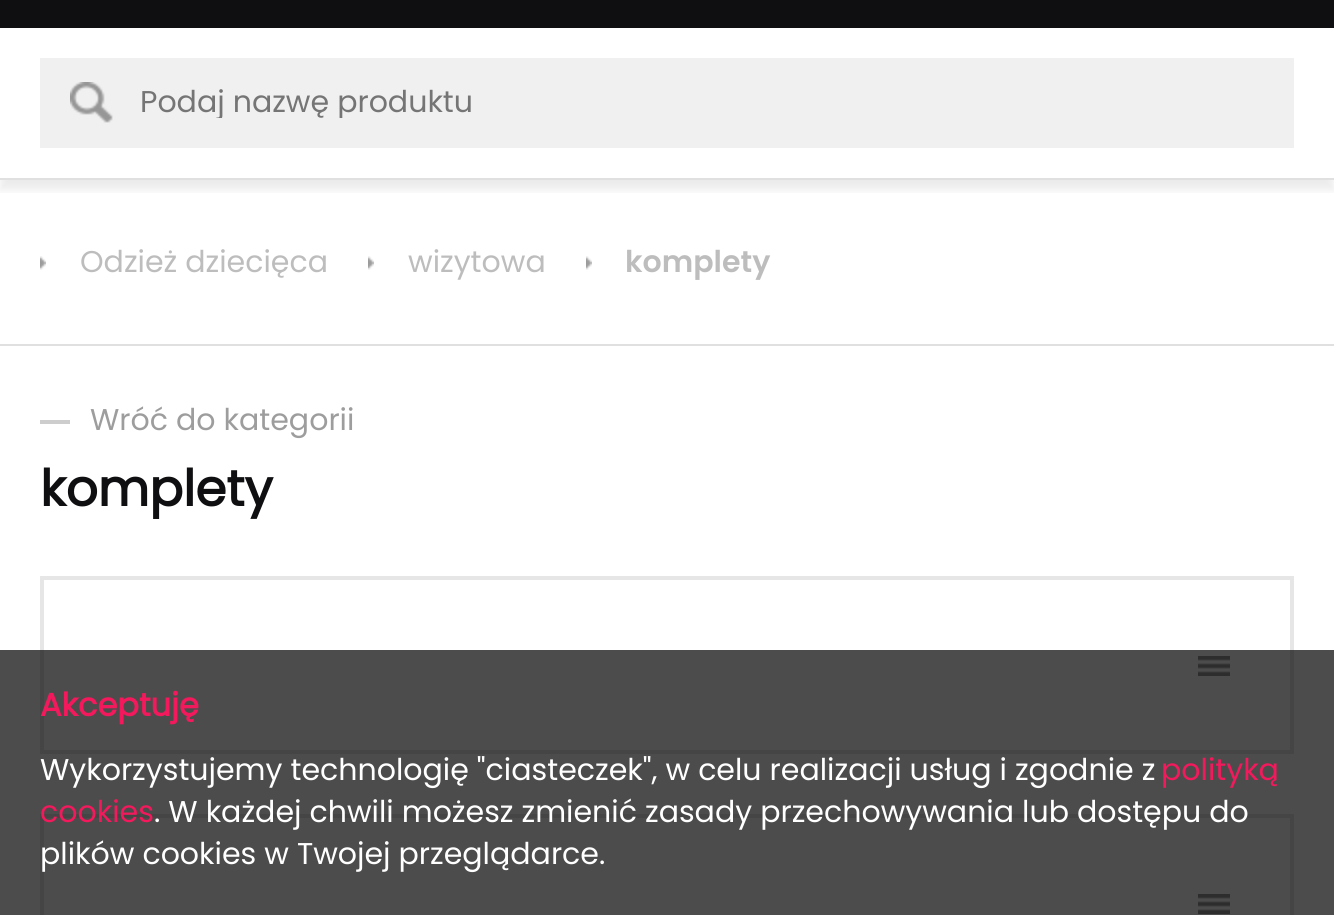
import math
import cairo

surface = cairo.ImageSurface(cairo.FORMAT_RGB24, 1334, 915)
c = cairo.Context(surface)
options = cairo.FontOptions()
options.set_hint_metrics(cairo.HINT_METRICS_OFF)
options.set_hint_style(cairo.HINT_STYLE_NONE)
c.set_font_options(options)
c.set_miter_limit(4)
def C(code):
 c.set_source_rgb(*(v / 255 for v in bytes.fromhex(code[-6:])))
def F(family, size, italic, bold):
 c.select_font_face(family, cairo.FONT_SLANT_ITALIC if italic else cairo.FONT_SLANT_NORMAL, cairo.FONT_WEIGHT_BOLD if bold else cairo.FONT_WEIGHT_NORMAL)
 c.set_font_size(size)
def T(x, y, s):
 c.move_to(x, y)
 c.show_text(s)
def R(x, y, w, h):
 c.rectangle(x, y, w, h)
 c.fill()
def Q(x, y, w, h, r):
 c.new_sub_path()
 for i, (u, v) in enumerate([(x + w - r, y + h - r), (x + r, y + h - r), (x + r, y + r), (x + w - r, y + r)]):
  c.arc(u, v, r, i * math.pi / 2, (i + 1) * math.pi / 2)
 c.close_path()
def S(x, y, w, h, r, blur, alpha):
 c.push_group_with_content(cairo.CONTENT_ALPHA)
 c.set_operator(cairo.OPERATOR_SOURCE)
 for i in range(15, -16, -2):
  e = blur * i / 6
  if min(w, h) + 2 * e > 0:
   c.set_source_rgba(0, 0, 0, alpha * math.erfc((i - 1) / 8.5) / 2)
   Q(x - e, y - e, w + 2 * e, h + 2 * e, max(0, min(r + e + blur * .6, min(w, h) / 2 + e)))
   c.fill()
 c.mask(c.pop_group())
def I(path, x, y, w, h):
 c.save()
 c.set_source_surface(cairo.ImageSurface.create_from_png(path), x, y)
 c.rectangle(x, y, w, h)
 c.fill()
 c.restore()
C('ffffff')
c.paint()
c.save()
c.rectangle(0,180,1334,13)
c.clip()
C('000000')
S(0,-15,1334,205,0,5,.08)
c.restore()
C('0f0e10')
R(0,0,1334,28)
C('e0e0e0')
R(0,178,1334,2)
C('f0f0f0')
R(40,58,1254,90)
I('1.png',70,82,43,41)
c.save()
c.rectangle(140,88,1154,30)
c.clip()
F('Poppins',30.05,0,0)
C('757575')
T(140,112,'Podaj nazwę produktu')
c.restore()
C('e0e0e0')
R(0,344,1334,2)
I('2.png',40,256,6,14)
F('Poppins',30.05,0,0)
C('bdbdbd')
T(80,272,'Odzież dziecięca')
I('2.png',368,256,6,14)
T(408,272,'wizytowa')
I('2.png',586,256,6,14)
F('Poppins SemiBold',30.05,0,0)
T(625,272,'komplety')
C('cdcdcd')
R(40,420,30,4)
F('Poppins',30.05,0,0)
C('9d9d9d')
T(90,430,'Wróć do kategorii')
F('Poppins',50,0,1)
C('0f0e10')
T(40,506,'komplety')
c.rectangle(42,578,1250,174)
C('e7e6e7')
c.set_line_width(4)
c.stroke()
I('3.png',1198,656,32,20)
c.rectangle(42,816,1250,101)
c.stroke()
I('3.png',1198,894,32,20)
c.set_source_rgba(0,0,0,0.7)
R(0,650,1334,265)
F('Poppins',32,0,1)
C('f3195c')
T(40,716,'Akceptuję')
F('Poppins',30.05,0,0)
C('ffffff')
T(40,780,'Wykorzystujemy technologię "ciasteczek", w celu realizacji usług i zgodnie z')
C('f3195c')
T(1161,780,'polityką')
T(40,822,'cookies')
C('ffffff')
T(154,822,'. W każdej chwili możesz zmienić zasady przechowywania lub dostępu do')
T(40,864,'plików cookies w Twojej przeglądarce.')
surface.write_to_png('o.png')
